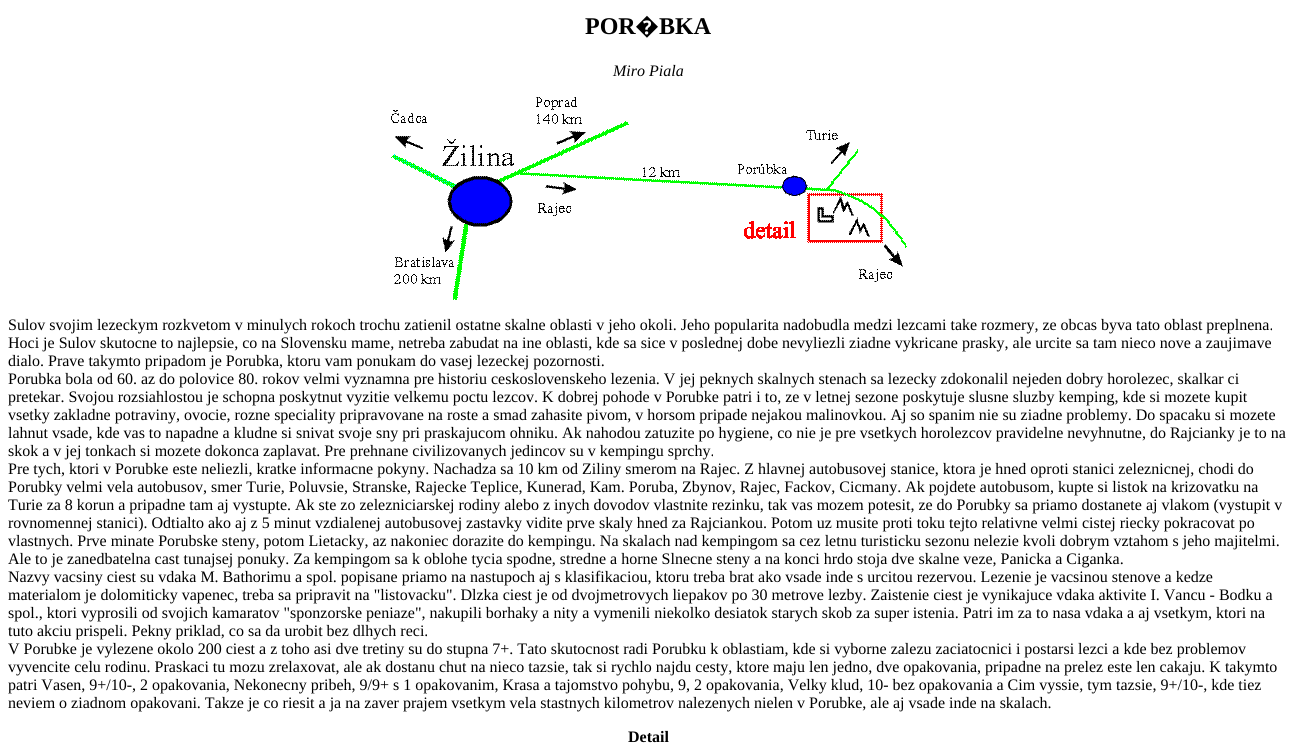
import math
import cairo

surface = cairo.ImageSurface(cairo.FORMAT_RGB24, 1296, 749)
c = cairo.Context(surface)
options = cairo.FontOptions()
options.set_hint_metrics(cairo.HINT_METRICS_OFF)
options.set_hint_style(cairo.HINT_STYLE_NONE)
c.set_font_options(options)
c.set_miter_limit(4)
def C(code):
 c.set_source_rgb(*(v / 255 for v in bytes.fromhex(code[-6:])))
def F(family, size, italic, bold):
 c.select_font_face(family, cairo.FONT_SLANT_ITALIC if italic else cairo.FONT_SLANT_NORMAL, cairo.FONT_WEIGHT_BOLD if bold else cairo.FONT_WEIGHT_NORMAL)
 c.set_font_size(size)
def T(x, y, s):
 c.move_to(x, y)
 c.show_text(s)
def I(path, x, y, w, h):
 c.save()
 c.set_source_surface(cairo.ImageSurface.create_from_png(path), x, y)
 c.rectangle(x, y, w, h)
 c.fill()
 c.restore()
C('ffffff')
c.paint()
F('Liberation Serif',24,0,1)
C('000000')
T(585,34,'POR')
F('Noto Sans',24,0,1)
T(635,34,'�')
F('Liberation Serif',24,0,1)
T(659,34,'BKA')
F('Liberation Serif',16,1,0)
T(613,76,'Miro Piala')
I('1.png',391,97,516,203)
F('Liberation Serif',16,0,0)
T(8,330,'Sulov svojim lezeckym rozkvetom v minulych rokoch trochu zatienil ostatne skalne oblasti v jeho okoli. Jeho popularita nadobudla medzi lezcami take rozmery, ze obcas byva tato oblast preplnena.')
T(8,348,'Hoci je Sulov skutocne to najlepsie, co na Slovensku mame, netreba zabudat na ine oblasti, kde sa sice v poslednej dobe nevyliezli ziadne vykricane prasky, ale urcite sa tam nieco nove a zaujimave')
T(8,366,'dialo. Prave takymto pripadom je Porubka, ktoru vam ponukam do vasej lezeckej pozornosti.')
T(8,384,'Porubka bola od 60. az do polovice 80. rokov velmi vyznamna pre historiu ceskoslovenskeho lezenia. V jej peknych skalnych stenach sa lezecky zdokonalil nejeden dobry horolezec, skalkar ci')
T(8,402,'pretekar. Svojou rozsiahlostou je schopna poskytnut vyzitie velkemu poctu lezcov. K dobrej pohode v Porubke patri i to, ze v letnej sezone poskytuje slusne sluzby kemping, kde si mozete kupit')
T(8,420,'vsetky zakladne potraviny, ovocie, rozne speciality pripravovane na roste a smad zahasite pivom, v horsom pripade nejakou malinovkou. Aj so spanim nie su ziadne problemy. Do spacaku si mozete')
T(8,438,'lahnut vsade, kde vas to napadne a kludne si snivat svoje sny pri praskajucom ohniku. Ak nahodou zatuzite po hygiene, co nie je pre vsetkych horolezcov pravidelne nevyhnutne, do Rajcianky je to na')
T(8,456,'skok a v jej tonkach si mozete dokonca zaplavat. Pre prehnane civilizovanych jedincov su v kempingu sprchy.')
T(8,474,'Pre tych, ktori v Porubke este neliezli, kratke informacne pokyny. Nachadza sa 10 km od Ziliny smerom na Rajec. Z hlavnej autobusovej stanice, ktora je hned oproti stanici zeleznicnej, chodi do')
T(8,492,'Porubky velmi vela autobusov, smer Turie, Poluvsie, Stranske, Rajecke Teplice, Kunerad, Kam. Poruba, Zbynov, Rajec, Fackov, Cicmany. Ak pojdete autobusom, kupte si listok na krizovatku na')
T(8,510,'Turie za 8 korun a pripadne tam aj vystupte. Ak ste zo zelezniciarskej rodiny alebo z inych dovodov vlastnite rezinku, tak vas mozem potesit, ze do Porubky sa priamo dostanete aj vlakom (vystupit v')
T(8,528,'rovnomennej stanici). Odtialto ako aj z 5 minut vzdialenej autobusovej zastavky vidite prve skaly hned za Rajciankou. Potom uz musite proti toku tejto relativne velmi cistej riecky pokracovat po')
T(8,546,'vlastnych. Prve minate Porubske steny, potom Lietacky, az nakoniec dorazite do kempingu. Na skalach nad kempingom sa cez letnu turisticku sezonu nelezie kvoli dobrym vztahom s jeho majitelmi.')
T(8,564,'Ale to je zanedbatelna cast tunajsej ponuky. Za kempingom sa k oblohe tycia spodne, stredne a horne Slnecne steny a na konci hrdo stoja dve skalne veze, Panicka a Ciganka.')
T(8,582,'Nazvy vacsiny ciest su vdaka M. Bathorimu a spol. popisane priamo na nastupoch aj s klasifikaciou, ktoru treba brat ako vsade inde s urcitou rezervou. Lezenie je vacsinou stenove a kedze')
T(8,600,'materialom je dolomiticky vapenec, treba sa pripravit na "listovacku". Dlzka ciest je od dvojmetrovych liepakov po 30 metrove lezby. Zaistenie ciest je vynikajuce vdaka aktivite I. Vancu - Bodku a')
T(8,618,'spol., ktori vyprosili od svojich kamaratov "sponzorske peniaze", nakupili borhaky a nity a vymenili niekolko desiatok starych skob za super istenia. Patri im za to nasa vdaka a aj vsetkym, ktori na')
T(8,636,'tuto akciu prispeli. Pekny priklad, co sa da urobit bez dlhych reci.')
T(8,654,'V Porubke je vylezene okolo 200 ciest a z toho asi dve tretiny su do stupna 7+. Tato skutocnost radi Porubku k oblastiam, kde si vyborne zalezu zaciatocnici i postarsi lezci a kde bez problemov')
T(8,672,'vyvencite celu rodinu. Praskaci tu mozu zrelaxovat, ale ak dostanu chut na nieco tazsie, tak si rychlo najdu cesty, ktore maju len jedno, dve opakovania, pripadne na prelez este len cakaju. K takymto')
T(8,690,'patri Vasen, 9+/10-, 2 opakovania, Nekonecny pribeh, 9/9+ s 1 opakovanim, Krasa a tajomstvo pohybu, 9, 2 opakovania, Velky klud, 10- bez opakovania a Cim vyssie, tym tazsie, 9+/10-, kde tiez')
T(8,708,'neviem o ziadnom opakovani. Takze je co riesit a ja na zaver prajem vsetkym vela stastnych kilometrov nalezenych nielen v Porubke, ale aj vsade inde na skalach.')
F('Liberation Serif',16,0,1)
T(628,742,'Detail')
surface.write_to_png('o.png')
